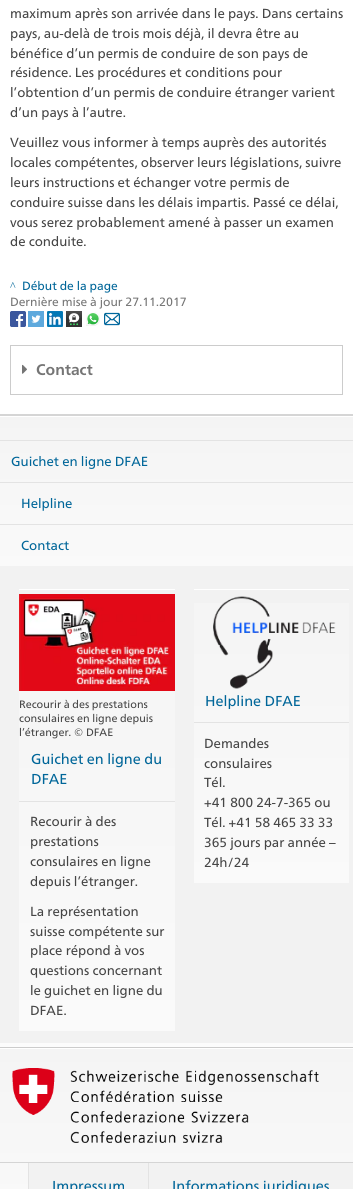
import math
import cairo

surface = cairo.ImageSurface(cairo.FORMAT_RGB24, 353, 1189)
c = cairo.Context(surface)
options = cairo.FontOptions()
options.set_hint_metrics(cairo.HINT_METRICS_OFF)
options.set_hint_style(cairo.HINT_STYLE_NONE)
c.set_font_options(options)
c.set_miter_limit(4)
def C(code):
 c.set_source_rgb(*(v / 255 for v in bytes.fromhex(code[-6:])))
def F(family, size, italic, bold):
 c.select_font_face(family, cairo.FONT_SLANT_ITALIC if italic else cairo.FONT_SLANT_NORMAL, cairo.FONT_WEIGHT_BOLD if bold else cairo.FONT_WEIGHT_NORMAL)
 c.set_font_size(size)
def T(x, y, s):
 c.move_to(x, y)
 c.show_text(s)
def R(x, y, w, h):
 c.rectangle(x, y, w, h)
 c.fill()
def I(path, x, y, w, h):
 c.save()
 c.set_source_surface(cairo.ImageSurface.create_from_png(path), x, y)
 c.rectangle(x, y, w, h)
 c.fill()
 c.restore()
C('ffffff')
c.paint()
F('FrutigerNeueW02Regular',13.2,0,0)
C('454545')
T(10,18,'maximum après son arrivée dans le pays. Dans certains')
T(10,38,'pays, au-delà de trois mois déjà, il devra être au')
T(10,58,'bénéfice d’un permis de conduire de son pays de')
T(10,77,'résidence. Les procédures et conditions pour')
T(10,97,'l’obtention d’un permis de conduire étranger varient')
T(10,117,'d’un pays à l’autre.')
T(10,147,'Veuillez vous informer à temps auprès des autorités')
T(10,167,'locales compétentes, observer leurs législations, suivre')
T(10,187,'leurs instructions et échanger votre permis de')
T(10,207,'conduire suisse dans les délais impartis. Passé ce délai,')
T(10,227,'vous serez probablement amené à passer un examen')
T(10,246,'de conduite.')
F('Liberation Serif',12,0,0)
C('006699')
T(10,290,'^')
F('FrutigerNeueW02Regular',12,0,0)
T(22,290,'Début de la page')
C('757575')
T(10,306,'Dernière mise à jour 27.11.2017')
I('1.png',10,311,16,16)
I('2.png',28,311,16,16)
I('3.png',47,311,16,16)
I('4.png',66,311,16,16)
I('5.png',86,312,14,14)
I('6.png',104,312,16,14)
C('cccccc')
R(10,394,333,1)
R(10,345,333,1)
R(342,345,1,49)
R(10,345,1,49)
I('7.png',22,364,5,10)
F('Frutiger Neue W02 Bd',15.5,0,1)
C('757575')
T(36,375,'Contact')
C('f2f2f2')
R(0,566,353,477)
C('d5d5d5')
R(0,414,353,2)
gradient = cairo.LinearGradient(177,416,177,566)
gradient.add_color_stop_rgba(0,0.957,0.957,0.957,1)
gradient.add_color_stop_rgba(1,0.98,0.98,0.98,1)
c.set_source(gradient)
R(0,417,353,149)
C('e3e3e3')
R(0,440,353,1)
F('FrutigerNeueW02Regular',13.2,0,0)
C('006699')
T(11,466,'Guichet en ligne DFAE')
C('e3e3e3')
R(0,482,353,1)
C('006699')
T(21,508,'Helpline')
C('e3e3e3')
R(0,524,353,1)
C('006699')
T(21,550,'Contact')
gradient = cairo.LinearGradient(97,578,97,1031)
gradient.add_color_stop_rgba(0,0.957,0.957,0.957,1)
gradient.add_color_stop_rgba(1,0.98,0.98,0.98,1)
c.set_source(gradient)
R(19,616,156,415)
I('8.png',19,594,156,97)
F('FrutigerNeueW02Regular',10.75,0,0)
C('454545')
T(19,708,'Recourir à des prestations')
T(19,722,'consulaires en ligne depuis')
T(19,736,'l’étranger. © DFAE')
C('ffffff')
R(19,589,156,1)
C('e3e3e3')
R(19,801,156,1)
F('FrutigerNeueW02Regular',14.4,0,0)
C('006699')
T(31,764,'Guichet en ligne du')
T(31,784,'DFAE')
F('FrutigerNeueW02Regular',13.2,0,0)
C('454545')
T(30,826,'Recourir à des')
T(30,846,'prestations')
T(30,866,'consulaires en ligne')
T(30,886,'depuis l’étranger.')
T(30,916,'La représentation')
T(30,936,'suisse compétente sur')
T(30,955,'place répond à vos')
T(30,975,'questions concernant')
T(30,995,'le guichet en ligne du')
T(30,1015,'DFAE.')
gradient = cairo.LinearGradient(272,578,272,883)
gradient.add_color_stop_rgba(0,0.957,0.957,0.957,1)
gradient.add_color_stop_rgba(1,0.98,0.98,0.98,1)
c.set_source(gradient)
R(194,603,155,280)
I('9.png',213,596,123,93)
C('ffffff')
R(194,589,155,1)
C('e3e3e3')
R(194,722,155,1)
F('FrutigerNeueW02Regular',14.4,0,0)
C('006699')
T(205,706,'Helpline DFAE')
F('FrutigerNeueW02Regular',13.2,0,0)
C('454545')
T(204,748,'Demandes')
T(204,768,'consulaires')
T(204,787,'Tél.')
T(204,807,'+41 800 24-7-365 ou')
T(204,827,'Tél. +41 58 465 33 33')
T(204,847,'365 jours par année –')
T(204,867,'24h/24')
C('fcfcfc')
R(0,1043,353,4)
C('cccccc')
R(0,1047,353,1)
gradient = cairo.LinearGradient(177,1048,177,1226)
gradient.add_color_stop_rgba(0,0.957,0.957,0.957,1)
gradient.add_color_stop_rgba(1,0.98,0.98,0.98,1)
c.set_source(gradient)
R(0,1049,353,140)
C('d5d5d5')
R(0,1162,353,1)
I('10.png',12,1068,307,75)
C('f2f2f2')
R(29,1163,119,26)
C('e3e3e3')
R(28,1163,1,26)
F('FrutigerNeueW02Regular',14.4,0,0)
C('006699')
T(52,1191,'Impressum')
C('f2f2f2')
R(149,1163,204,26)
C('e3e3e3')
R(148,1163,1,26)
C('006699')
T(172,1191,'Informations juridiques')
surface.write_to_png('o.png')
